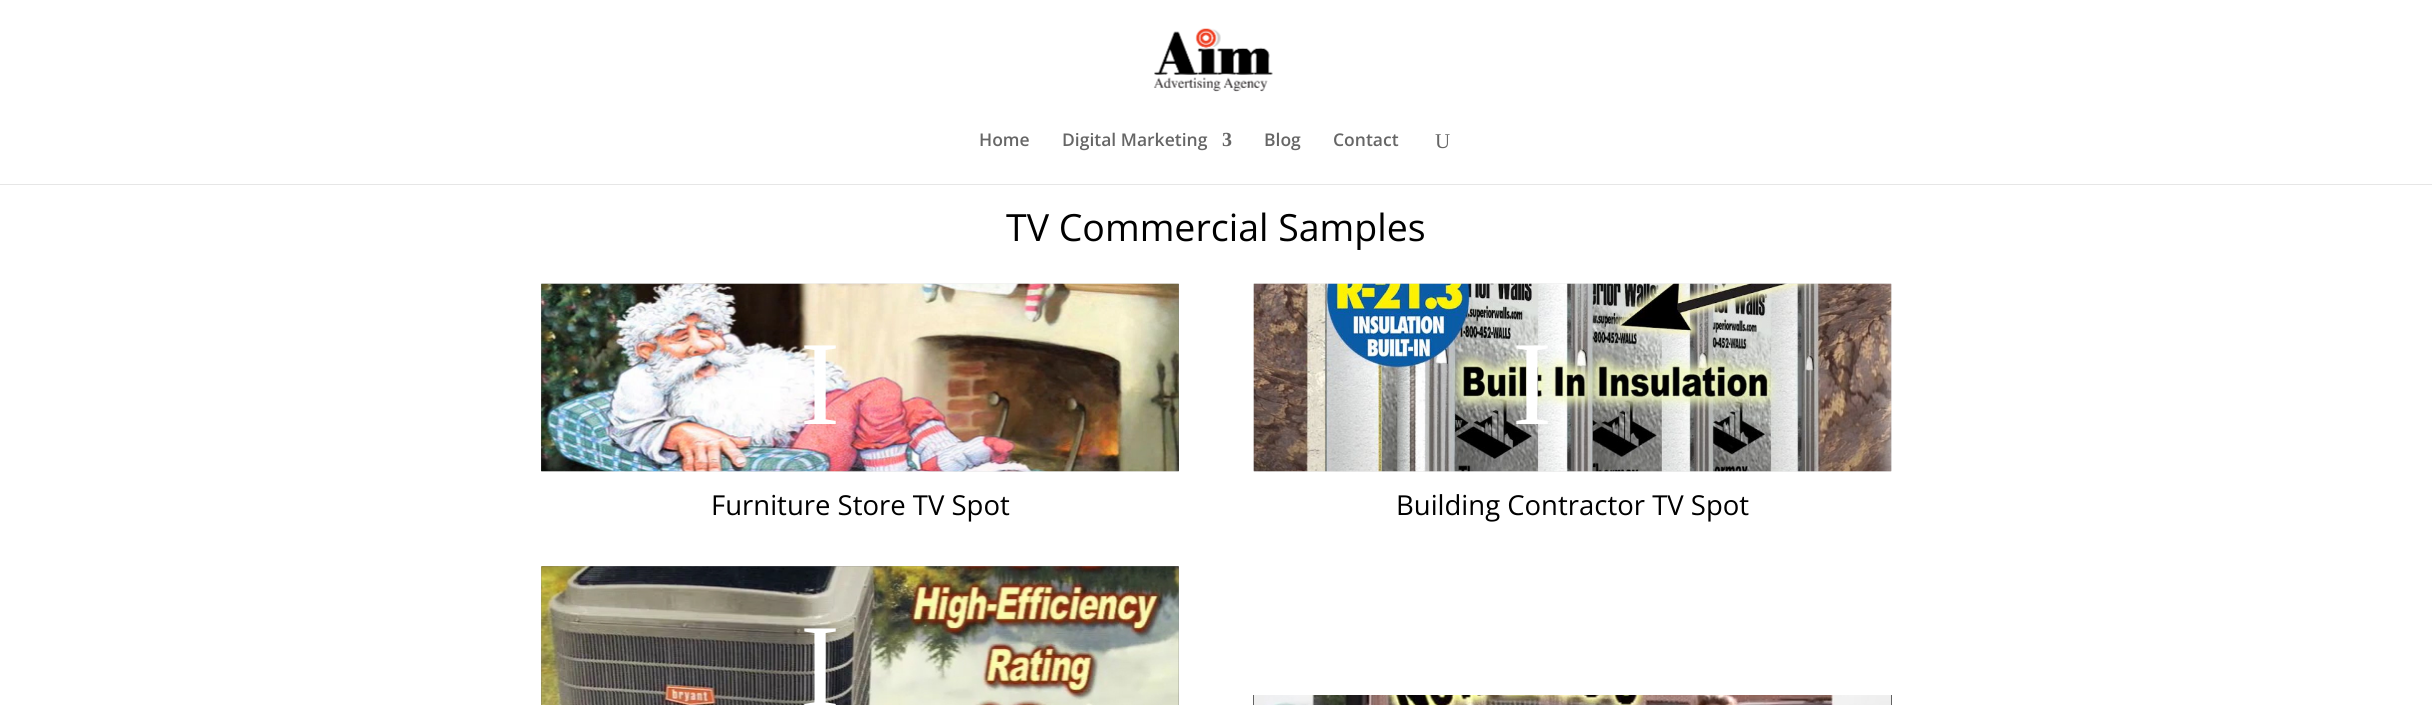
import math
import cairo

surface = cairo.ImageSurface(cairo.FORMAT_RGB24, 2432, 705)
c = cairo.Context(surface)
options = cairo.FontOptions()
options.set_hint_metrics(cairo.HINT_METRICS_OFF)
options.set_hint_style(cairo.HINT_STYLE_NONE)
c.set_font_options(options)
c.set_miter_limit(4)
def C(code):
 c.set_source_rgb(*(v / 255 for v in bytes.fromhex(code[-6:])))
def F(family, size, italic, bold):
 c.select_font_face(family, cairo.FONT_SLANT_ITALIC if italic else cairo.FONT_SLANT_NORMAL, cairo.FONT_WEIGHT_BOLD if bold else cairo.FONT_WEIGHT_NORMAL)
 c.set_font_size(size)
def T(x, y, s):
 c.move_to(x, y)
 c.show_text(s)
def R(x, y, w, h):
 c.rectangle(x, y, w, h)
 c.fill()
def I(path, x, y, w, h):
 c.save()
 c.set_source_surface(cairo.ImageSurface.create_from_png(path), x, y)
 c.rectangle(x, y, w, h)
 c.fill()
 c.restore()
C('ffffff')
c.paint()
C('e6e6e6')
c.new_path()
c.move_to(0,184)
c.line_to(0,185)
c.line_to(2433,185)
c.line_to(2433,1)
c.line_to(2432,1)
c.line_to(2432,184)
c.close_path()
c.fill()
I('1.png',1153,28,120,64)
F('Open Sans SemiBold',17.5,0,0)
C('666666')
T(979,146,'Home')
T(1062,146,'Digital Marketing')
F('Liberation Serif',20,0,1)
T(1222,146,'3')
F('Open Sans SemiBold',17.5,0,0)
T(1264,146,'Blog')
T(1333,146,'Contact')
F('Liberation Serif',21,0,0)
T(1435,148,'U')
F('Open Sans',37.5,0,0)
C('000000')
T(1006,241,'TV Commercial Samples')
I('2.png',541,283,638,189)
I('3.png',541,283,638,189)
F('Liberation Serif',120,0,0)
C('ffffff')
T(800,424,'I')
F('Open Sans',27.5,0,0)
C('000000')
T(711,515,'Furniture Store TV Spot')
I('4.png',541,566,638,139)
I('5.png',541,566,638,139)
F('Liberation Serif',120,0,0)
C('ffffff')
T(800,707,'I')
I('6.png',1253,283,639,189)
I('7.png',1253,283,639,189)
T(1512,424,'I')
F('Open Sans',27.5,0,0)
C('000000')
T(1396,515,'Building Contractor TV Spot')
C('333333')
R(1253,695,639,10)
I('8.png',1253,695,639,10)
surface.write_to_png('o.png')
